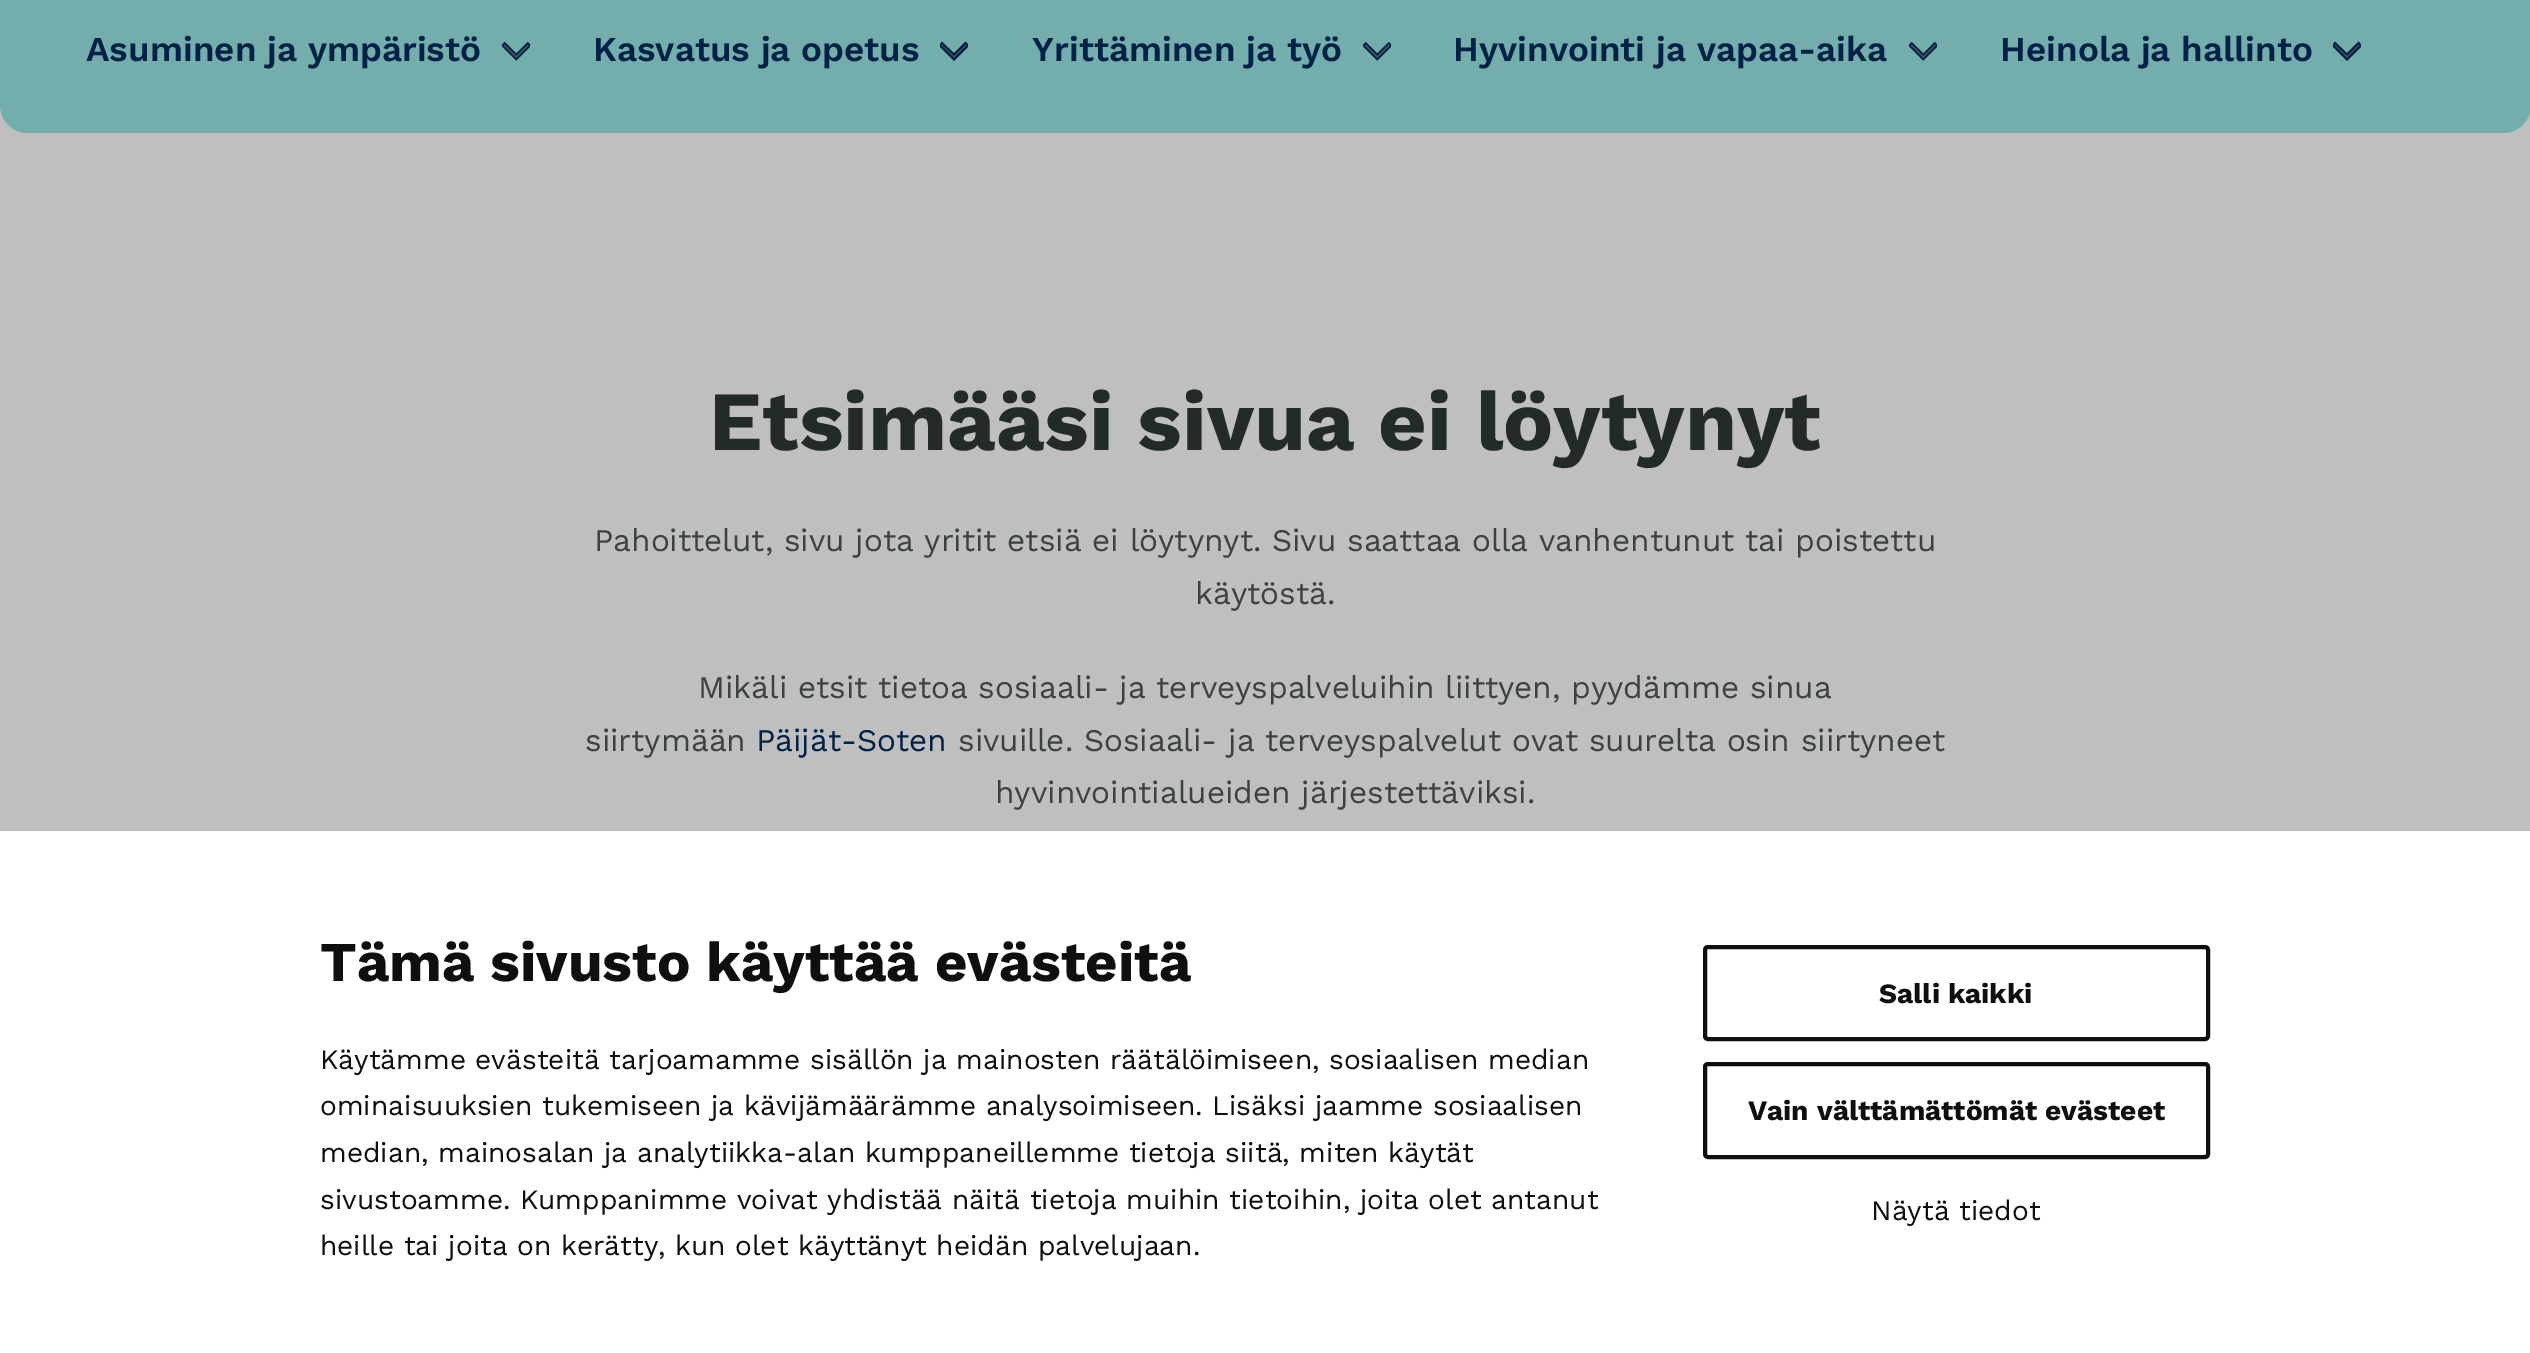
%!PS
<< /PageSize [2530 1353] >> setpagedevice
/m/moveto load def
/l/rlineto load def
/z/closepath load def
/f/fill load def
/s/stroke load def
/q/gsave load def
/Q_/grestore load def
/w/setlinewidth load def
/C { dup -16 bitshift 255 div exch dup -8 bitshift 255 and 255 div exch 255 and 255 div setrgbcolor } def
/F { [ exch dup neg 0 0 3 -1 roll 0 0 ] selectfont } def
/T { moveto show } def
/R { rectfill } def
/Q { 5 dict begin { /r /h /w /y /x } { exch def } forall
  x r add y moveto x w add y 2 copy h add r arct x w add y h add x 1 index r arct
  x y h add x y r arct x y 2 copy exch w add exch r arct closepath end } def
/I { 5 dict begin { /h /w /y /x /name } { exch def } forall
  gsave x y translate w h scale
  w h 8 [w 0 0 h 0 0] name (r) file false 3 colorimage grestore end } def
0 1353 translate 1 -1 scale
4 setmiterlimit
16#BFBFBF C
0 0 2530 1353 R
16#73AEAC C
0 -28 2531 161 28 Q f
/WorkSans-SemiBold 35 F
16#002147 C
(Asuminen ja ympäristö) 86 61 T
(1.rgb) 502 41 28 20 I
(Kasvatus ja opetus) 593 61 T
16#4E5356 C
968 45.5 m -14 14 l -14 -14 l 2 -2.5 l 12 11.5 l 11.5 -11.5 l z f
q
940 37 28 28 rectclip
16#002147 C
1.8 w
968 45.5 m -14 14 l -14 -14 l 2 -2.5 l 12 11.5 l 11.5 -11.5 l z s
Q_
16#002147 C
(Yrittäminen ja työ) 1032 61 T
(1.rgb) 1363 41 28 20 I
(Hyvinvointi ja vapaa-aika) 1453 61 T
(1.rgb) 1909 41 28 20 I
(Heinola ja hallinto) 2000 61 T
16#4E5356 C
2361 45.5 m -14 14 l -14 -14 l 2 -2.5 l 12 11.5 l 11.5 -11.5 l z f
q
2333 37 28 28 rectclip
16#002147 C
1.8 w
2361 45.5 m -14 14 l -14 -14 l 2 -2.5 l 12 11.5 l 11.5 -11.5 l z s
Q_
/WorkSans-Bold 84 F
16#222B29 C
(Etsimääsi sivua ei löytynyt) 709 450 T
/WorkSans-Regular 31.5 F
16#3C4141 C
(Pahoittelut, sivu jota yritit etsiä ei löytynyt. Sivu saattaa olla vanhentunut tai poistettu) 594 551 T
(käytöstä.) 1195 604 T
(Mikäli etsit tietoa sosiaali- ja terveyspalveluihin liittyen, pyydämme sinua) 698 698 T
(siirtymään) 585 751 T
16#002147 C
(Päijät-Soten) 756 751 T
16#3C4141 C
(sivuille. Sosiaali- ja terveyspalvelut ovat suurelta osin siirtyneet) 958 751 T
(hyvinvointialueiden järjestettäviksi.) 995 803 T
16#FFFFFF C
0 831 2530 522 R
/WorkSans-Bold 56 F
16#0F0F0F C
(Tämä sivusto käyttää evästeitä) 320 981 T
/WorkSans-Regular 28 F
(Käytämme evästeitä tarjoamamme sisällön ja mainosten räätälöimiseen, sosiaalisen median) 320 1069 T
(ominaisuuksien tukemiseen ja kävijämäärämme analysoimiseen. Lisäksi jaamme sosiaalisen) 320 1115 T
(median, mainosalan ja analytiikka-alan kumppaneillemme tietoja siitä, miten käytät) 320 1162 T
(sivustoamme. Kumppanimme voivat yhdistää näitä tietoja muihin tietoihin, joita olet antanut) 320 1209 T
(heille tai joita on kerätty, kun olet käyttänyt heidän palvelujaan.) 320 1255 T
4 w
1705 947 503 92 3 Q s
/WorkSans-Bold 28 F
(Salli kaikki) 1879 1003 T
1705 1064 503 93 3 Q s
(Vain välttämättömät evästeet) 1748 1120 T
/WorkSans-Regular 28 F
(Näytä tiedot) 1871 1220 T
showpage
